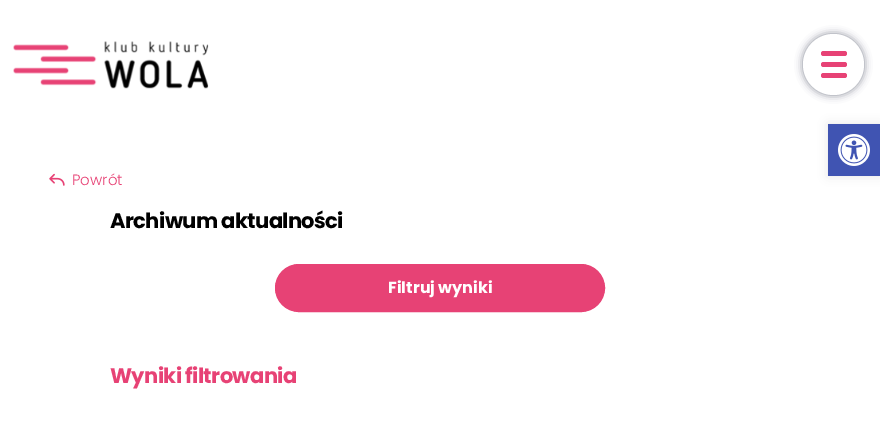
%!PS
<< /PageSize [880 426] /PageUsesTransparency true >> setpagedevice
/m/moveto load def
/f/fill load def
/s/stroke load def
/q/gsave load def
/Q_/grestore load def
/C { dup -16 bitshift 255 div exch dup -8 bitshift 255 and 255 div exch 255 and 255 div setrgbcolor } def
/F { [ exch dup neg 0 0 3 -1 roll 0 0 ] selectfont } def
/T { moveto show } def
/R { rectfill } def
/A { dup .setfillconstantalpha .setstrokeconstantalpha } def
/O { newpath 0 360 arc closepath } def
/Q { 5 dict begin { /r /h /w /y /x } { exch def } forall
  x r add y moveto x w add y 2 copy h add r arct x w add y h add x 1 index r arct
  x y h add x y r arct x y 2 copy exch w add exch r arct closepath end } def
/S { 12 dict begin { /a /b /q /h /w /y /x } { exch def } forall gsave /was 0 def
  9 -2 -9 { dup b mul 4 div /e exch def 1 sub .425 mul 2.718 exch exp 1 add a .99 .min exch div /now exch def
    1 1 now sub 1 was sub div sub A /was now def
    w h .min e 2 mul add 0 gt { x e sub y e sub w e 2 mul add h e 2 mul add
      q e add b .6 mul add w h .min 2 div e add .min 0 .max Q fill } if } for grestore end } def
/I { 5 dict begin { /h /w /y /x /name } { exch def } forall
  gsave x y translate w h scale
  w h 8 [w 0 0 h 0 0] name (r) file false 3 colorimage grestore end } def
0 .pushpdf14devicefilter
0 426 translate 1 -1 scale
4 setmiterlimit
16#FFFFFF C
0 0 880 426 R
(1.rgb) 13 41 196 48 I
16#838693 C
803 34 61 61 30.5 4 1 S
16#FFFFFF C
833.5 64.5 30.5 O f
16#E74275 C
821 51 26 5 2.5 Q f
821 62 26 5 2.5 Q f
821 73 26 5 2.5 Q f
16#000000 C
828 124 52 52 0 5 .1 S
16#4054B2 C
828 124 52 52 R
(2.rgb) 838 134 32 32 I
(3.rgb) 49 173 16 13 I
/Poppins-Light 15 F
16#E74275 C
(Powrót) 72 185 T
/Poppins-Bold 21 F
16#000000 C
110 228 m -.6 0 (Archiwum aktualności) ashow
16#E74275 C
275.5 264.5 329 47 23.5 Q q f Q_
s
/Poppins-Bold 16 F
16#FFFFFF C
(Filtruj wyniki) 388 293 T
/Poppins-Bold 21 F
16#E74275 C
110 383 m -.6 0 (Wyniki filtrowania) ashow
.poppdf14devicefilter showpage
